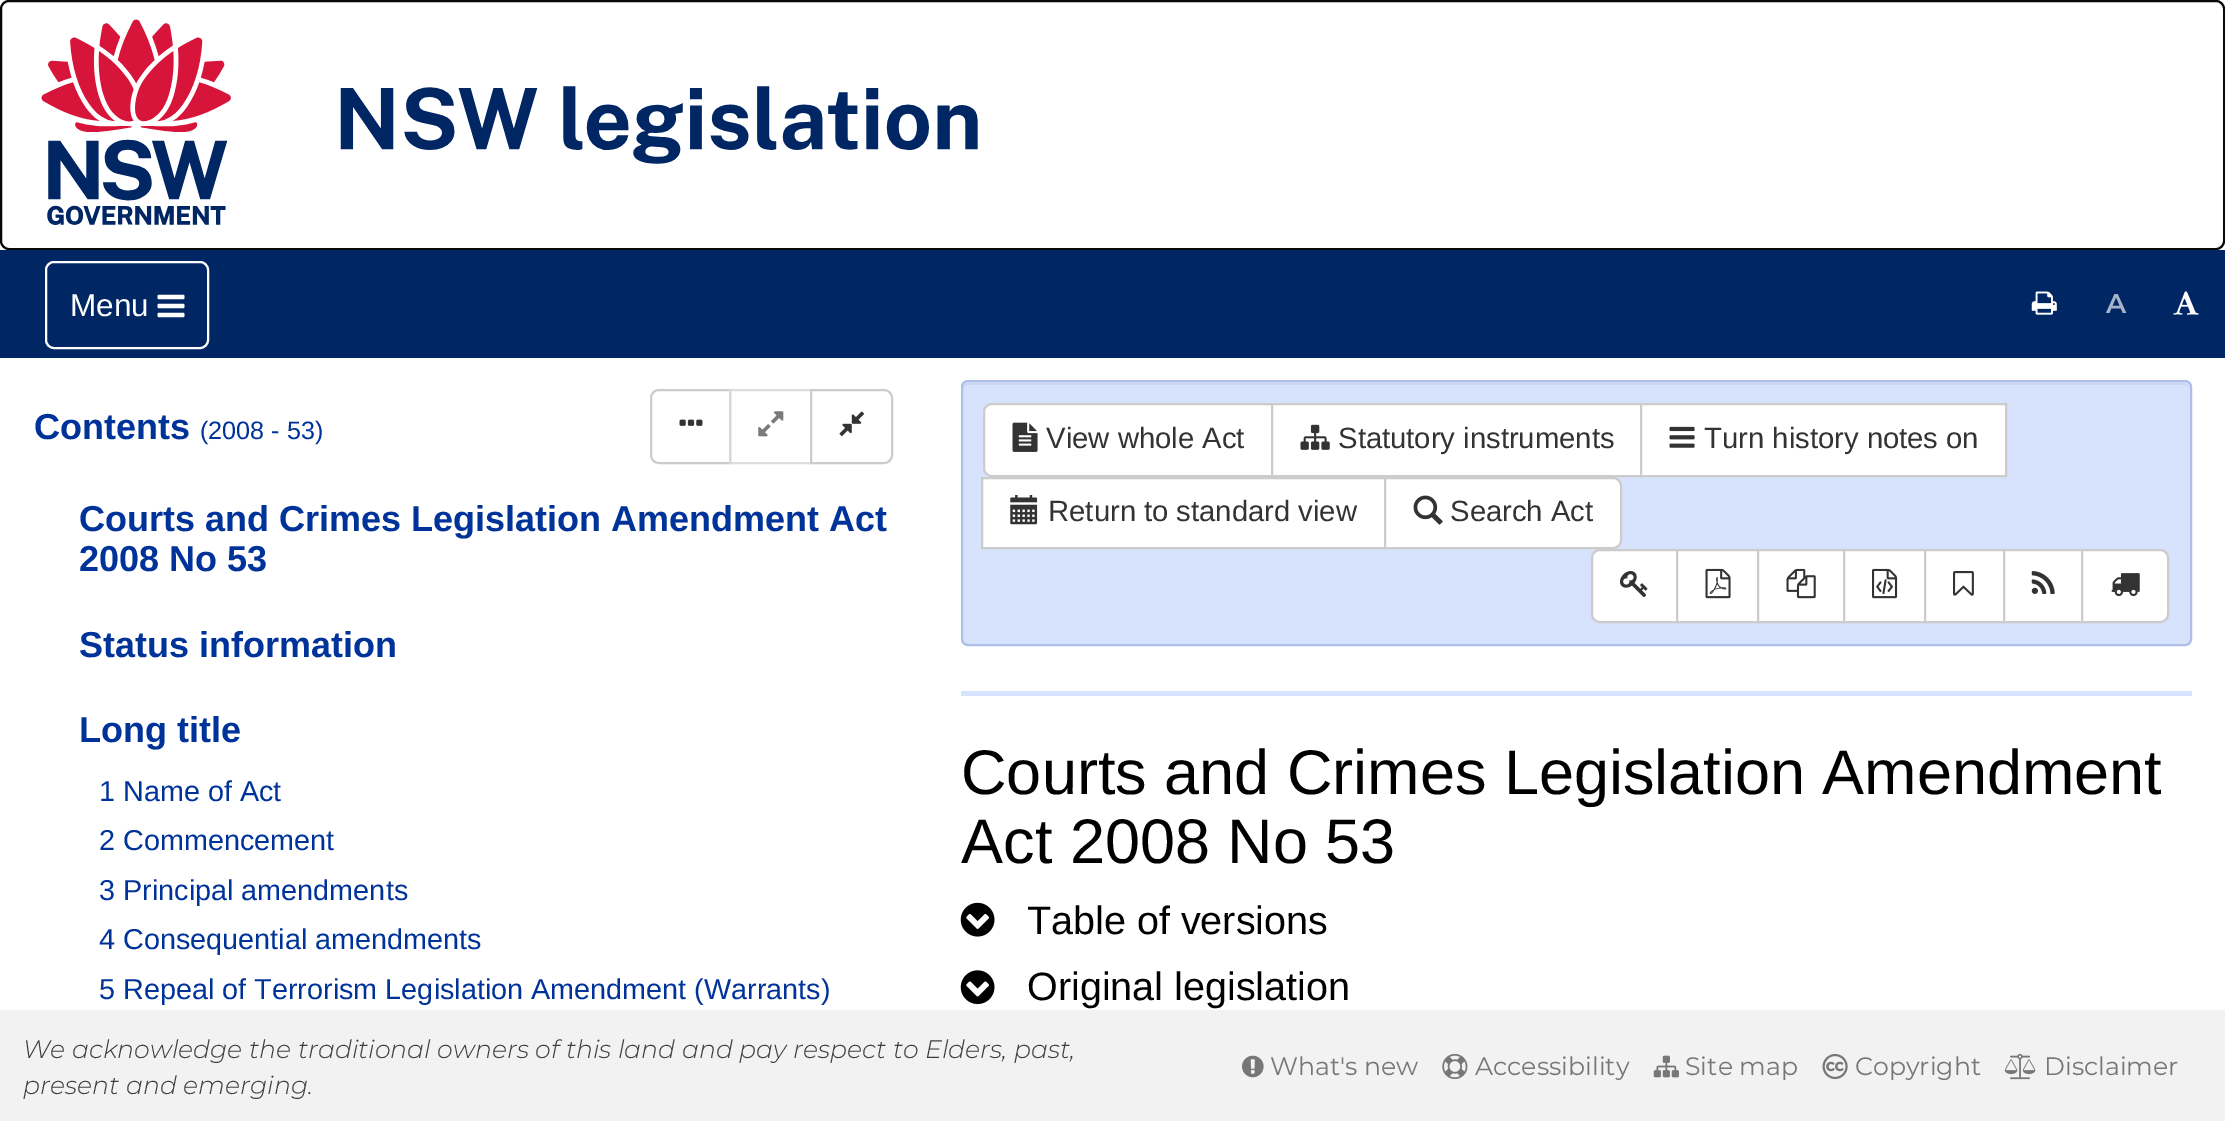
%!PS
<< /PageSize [2225 1121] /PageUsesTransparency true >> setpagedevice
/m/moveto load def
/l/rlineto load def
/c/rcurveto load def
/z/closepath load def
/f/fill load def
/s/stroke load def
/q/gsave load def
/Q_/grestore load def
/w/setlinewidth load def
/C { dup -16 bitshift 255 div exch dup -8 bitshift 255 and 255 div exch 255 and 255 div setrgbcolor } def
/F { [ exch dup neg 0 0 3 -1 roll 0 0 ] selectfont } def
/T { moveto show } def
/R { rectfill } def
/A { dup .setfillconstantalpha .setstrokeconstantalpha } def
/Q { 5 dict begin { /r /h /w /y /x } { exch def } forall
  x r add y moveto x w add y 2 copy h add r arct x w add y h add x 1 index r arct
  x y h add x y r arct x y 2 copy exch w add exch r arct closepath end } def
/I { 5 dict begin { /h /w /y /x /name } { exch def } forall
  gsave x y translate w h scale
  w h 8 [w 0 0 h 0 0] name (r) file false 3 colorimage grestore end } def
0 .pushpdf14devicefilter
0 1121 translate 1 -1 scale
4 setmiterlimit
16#FFFFFF C
0 0 2225 1121 R
16#080808 C
2 w
1 1 2223 248 8 Q s
(1.rgb) 41 19 937 206 I
16#002664 C
0 250 2225 108 R
16#FFFFFF C
46 262 162 86 8 Q s
/LiberationSans-Regular 31.5 F
(Menu) 70 316 T
(2.rgb) 157 294 28 24 I
(3.rgb) 2031 291 26 24 I
/Montserrat-SemiBold 27 F
16#A6B3C9 C
2106 313 m 1 0 (A) ashow
(4.rgb) 2173 291 26 24 I
/LiberationSans-Bold 36 F
16#003399 C
(Contents) 34 439 T
/LiberationSans-Regular 25.2 F
(\(2008 - 53\)) 200 439 T
16#CCCCCC C
659 390 m 71 0 l 0 73 l -71 0 l -4.5 0 -8 -3.5 -8 -8 c 0 -57 l 0 -4.5 3.5 -8 8 -8 c z s
(5.rgb) 679 419 24 7 I
0.65 A
16#FFFFFF C
729 389 2 75 R
16#CCCCCC C
730 390 81 73 rectstroke
1 A
(6.rgb) 758 411 26 26 I
16#FFFFFF C
811 390 m 73 0 l 4.5 0 8 3.5 8 8 c 0 57 l 0 4.5 -3.5 8 -8 8 c -73 0 l z q f Q_
16#CCCCCC C
s
(7.rgb) 839 411 26 26 I
/LiberationSans-Bold 36 F
16#003399 C
(Courts and Crimes Legislation Amendment Act) 79 531 T
(2008 No 53) 79 571 T
(Status information) 79 657 T
(Long title) 79 742 T
/LiberationSans-Regular 28.8 F
(1 Name of Act) 99 801 T
(2 Commencement) 99 850 T
(3 Principal amendments) 99 900 T
(4 Consequential amendments) 99 949 T
(5 Repeal of Terrorism Legislation Amendment \(Warrants\)) 99 999 T
16#D7E2FC C
961 380 1231 266 7 Q f
16#CCD7EF C
968 385 m 1217 0 l 2 0 4 2 4 4 c 0 -3 -2 -6 -5 -6 c -1216 0 l -3 0 -5 3 -5 6 c 0 -2 2 -4 5 -4 c z f
16#AEBFE9 C
962 381 1229 264 6 Q s
16#FFFFFF C
992 404 m 281 0 l 0 72 l -281 0 l -4.5 0 -8 -3.5 -8 -8 c 0 -56 l 0 -4.5 3.5 -8 8 -8 c z q f Q_
16#CCCCCC C
s
(8.rgb) 1012 422 26 30 I
/LiberationSans-Regular 29.25 F
16#333333 C
(View whole Act) 1046 448 T
16#FFFFFF C
1273 405 367 70 R
16#CCCCCC C
1272 404 370 72 rectstroke
(9.rgb) 1300 424 30 26 I
16#333333 C
(Statutory instruments) 1338 448 T
16#FFFFFF C
1641 404 m 365 0 l 0 72 l -365 0 l z q f Q_
16#CCCCCC C
s
(10.rgb) 1669 426 26 22 I
16#333333 C
(Turn history notes on) 1704 448 T
16#FFFFFF C
982 478 m 403 0 l 0 70 l -403 0 l z q f Q_
16#CCCCCC C
s
(11.rgb) 1010 495 28 30 I
16#333333 C
(Return to standard view) 1048 521 T
16#FFFFFF C
1385 478 m 228 0 l 4.5 0 8 3.5 8 8 c 0 54 l 0 4.5 -3.5 8 -8 8 c -228 0 l z q f Q_
16#CCCCCC C
s
(12.rgb) 1413 495 30 30 I
16#333333 C
(Search Act) 1450 521 T
16#FFFFFF C
1600 550 m 78 0 l 0 72 l -78 0 l -4.5 0 -8 -3.5 -8 -8 c 0 -56 l 0 -4.5 3.5 -8 8 -8 c z q f Q_
16#CCCCCC C
s
(13.rgb) 1620 571 28 26 I
16#FFFFFF C
1678 551 79 70 R
16#CCCCCC C
1677 550 82 72 rectstroke
(14.rgb) 1705 568 26 31 I
16#FFFFFF C
1758 550 m 86 0 l 0 72 l -86 0 l z q f Q_
16#CCCCCC C
s
(15.rgb) 1786 568 30 31 I
16#FFFFFF C
1844 550 m 81 0 l 0 72 l -81 0 l z q f Q_
16#CCCCCC C
s
(16.rgb) 1872 568 26 31 I
16#FFFFFF C
1925 550 m 79 0 l 0 72 l -79 0 l z q f Q_
16#CCCCCC C
s
(17.rgb) 1953 571 21 25 I
16#FFFFFF C
2005 551 76 70 R
16#CCCCCC C
2004 550 79 72 rectstroke
(18.rgb) 2031 571 24 23 I
16#FFFFFF C
2082 550 m 78 0 l 4.5 0 8 3.5 8 8 c 0 56 l 0 4.5 -3.5 8 -8 8 c -78 0 l z q f Q_
16#CCCCCC C
s
(19.rgb) 2111 573 29 24 I
16#D7E2FC C
961 691 1231 5 R
/LiberationSans-Regular 63 F
16#000000 C
(Courts and Crimes Legislation Amendment) 961 794 T
(Act 2008 No 53) 961 863 T
(20.rgb) 960 902 35 35 I
/LiberationSans-Regular 39.5 F
(Table of versions) 1027 934 T
(21.rgb) 960 970 35 35 I
(Original legislation) 1027 1000 T
16#F2F2F2 C
0 1010 2225 111 R
/Montserrat-LightItalic 25.2 F
16#3D3D3D C
(We acknowledge the traditional owners of this land and pay respect to Elders, past,) 23 1058 T
(present and emerging.) 23 1094 T
(22.rgb) 1242 1055 22 23 I
/Montserrat-Regular 25.2 F
16#777777 C
(What's new) 1270 1075 T
(23.rgb) 1442 1053 26 27 I
(Accessibility) 1475 1075 T
(24.rgb) 1653 1055 26 23 I
(Site map) 1685 1075 T
(25.rgb) 1822 1053 26 27 I
(Copyright) 1855 1075 T
(26.rgb) 2004 1053 32 27 I
(Disclaimer) 2044 1075 T
.poppdf14devicefilter showpage
